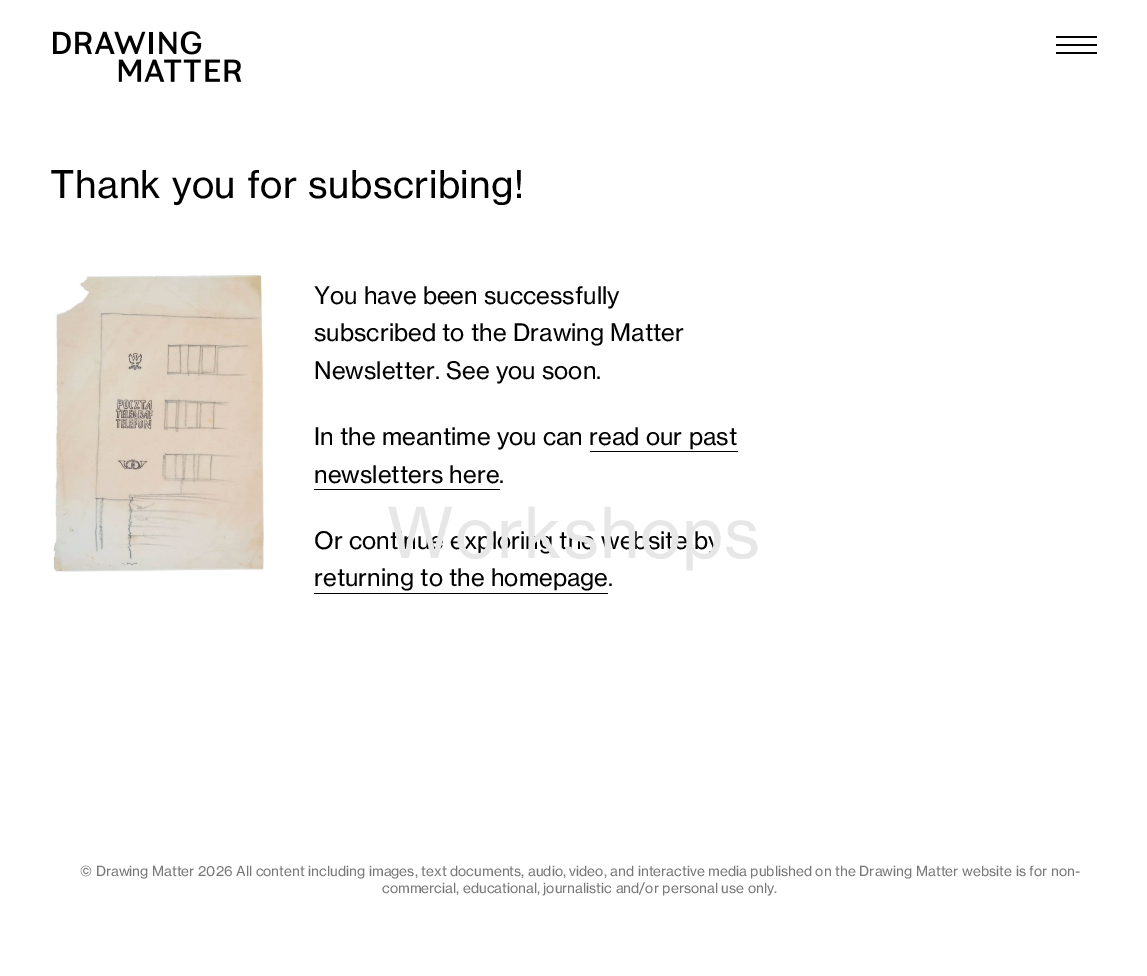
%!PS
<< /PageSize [1147 976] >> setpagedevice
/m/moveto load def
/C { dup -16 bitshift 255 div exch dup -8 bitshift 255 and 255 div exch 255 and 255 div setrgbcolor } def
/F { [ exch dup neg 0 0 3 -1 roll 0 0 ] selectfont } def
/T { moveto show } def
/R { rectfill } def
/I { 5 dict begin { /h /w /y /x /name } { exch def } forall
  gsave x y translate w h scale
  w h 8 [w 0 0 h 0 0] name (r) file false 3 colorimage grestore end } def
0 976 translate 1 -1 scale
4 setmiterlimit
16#FFFFFF C
0 0 1147 976 R
/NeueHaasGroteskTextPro-Regular 37.5 F
16#000000 C
50 198 m .5 0 (Thank you for subscribing!) ashow
(1.rgb) 52 272 212 300 I
/NeueHaasGroteskTextPro-Regular 23.75 F
(You have been successfully) 314 304 T
(subscribed to the Drawing Matter) 314 341 T
(Newsletter. See you soon.) 314 379 T
(In the meantime you can read our past) 314 445 T
(newsletters here.) 314 483 T
590 451 148 1 R
314 489 186 1 R
(Or continue exploring the website by) 314 549 T
(returning to the homepage.) 314 586 T
314 593 294 1 R
(2.rgb) 53 31 189 51 I
1056 44 41 2 R
1056 36 41 2 R
1056 52 41 2 R
/NeueHaasGroteskTextPro-Regular 69 F
16#E7E7E7 C
387 558 m 1.1 0 (Workshops) ashow
/NeueHaasGroteskTextPro-Regular 13.75 F
16#777777 C
(© Drawing Matter 2026 All content including images, text documents, audio, video, and interactive media published on the Drawing Matter website is for non-) 80 876 T
(commercial, educational, journalistic and/or personal use only.) 382 893 T
showpage
